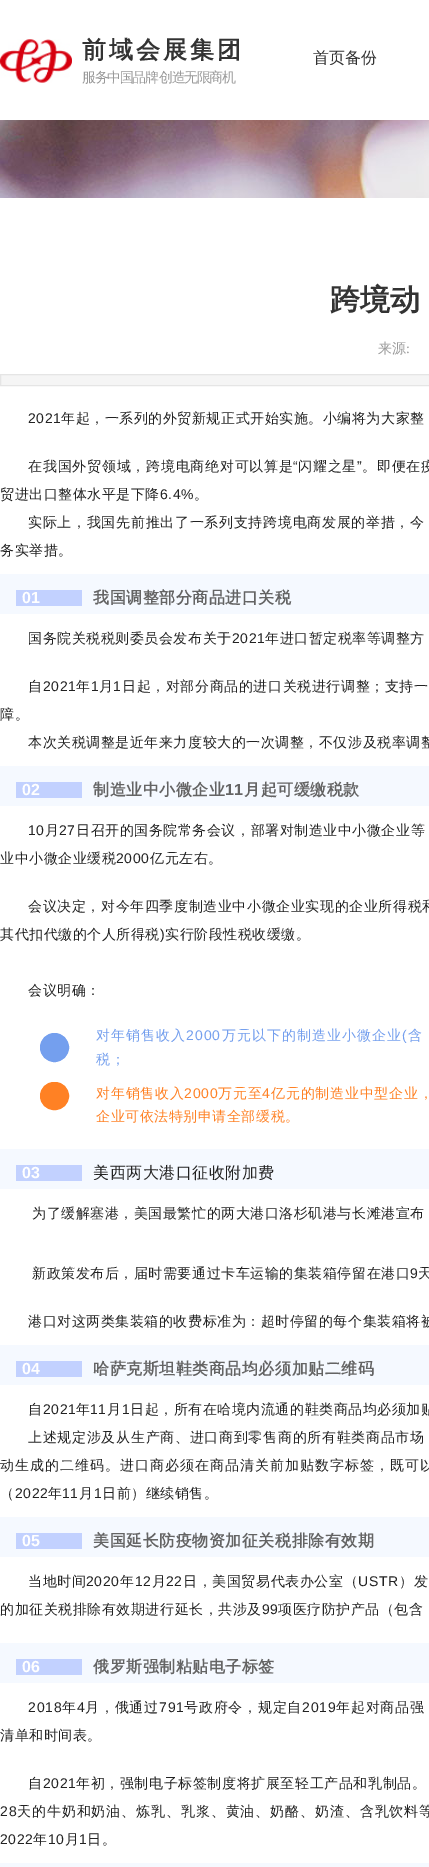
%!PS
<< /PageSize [429 1867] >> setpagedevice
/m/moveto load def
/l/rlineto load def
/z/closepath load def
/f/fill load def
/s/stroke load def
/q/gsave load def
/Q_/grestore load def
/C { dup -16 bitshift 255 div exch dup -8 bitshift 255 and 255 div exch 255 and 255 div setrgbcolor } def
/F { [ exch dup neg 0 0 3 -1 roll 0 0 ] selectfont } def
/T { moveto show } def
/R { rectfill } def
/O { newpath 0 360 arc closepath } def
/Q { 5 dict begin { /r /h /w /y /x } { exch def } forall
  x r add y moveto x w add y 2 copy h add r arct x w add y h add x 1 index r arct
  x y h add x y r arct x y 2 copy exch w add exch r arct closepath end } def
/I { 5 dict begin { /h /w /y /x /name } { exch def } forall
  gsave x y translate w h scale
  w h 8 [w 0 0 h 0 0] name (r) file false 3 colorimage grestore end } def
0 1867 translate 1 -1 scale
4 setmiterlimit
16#FFFFFF C
0 0 429 1867 R
(1.rgb) 0 39 72 44 I
/WenQuanYiZenHei-Bold 24 F
16#333333 C
82 58 m 3 0 (前域会展集团) ashow
/WenQuanYiZenHei-Medium 16 F
(首页备份) 313 63 T
/WenQuanYiZenHei-Medium 14 F
16#999999 C
82 82 m -1.5 0 (服务中国品牌) ashow
159 82 m -1.5 0 (创造无限商机) ashow
(2.rgb) 0 120 429 78 I
/WenQuanYiZenHei-Bold 30 F
16#333333 C
(跨境动) 330 310 T
/WenQuanYiZenHei-Medium 14 F
16#999999 C
(来源) 378 353 T
/LiberationSerif-Regular 14 F
(:) 406 353 T
16#F5F5F5 C
.5 374.5 m 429 0 l 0 11 l -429 0 l z q f Q_
16#E5E5E5 C
s
/LiberationSans-Regular 14 F
16#222222 C
28 423 m .55 0 (2021) ashow
/WenQuanYiZenHei-Medium 14 F
61 423 m .55 0 (年起，一系列的外贸新规正式开始实施。小编将为大家整) ashow
28 471 m .75 0 (在我国外贸领域，跨境电商绝对可以算是) ashow
/LiberationSans-Regular 14 F
293 471 m .75 0 (“) ashow
/WenQuanYiZenHei-Medium 14 F
298 471 m .75 0 (闪耀之星) ashow
/LiberationSans-Regular 14 F
357 471 m .75 0 (”) ashow
/WenQuanYiZenHei-Medium 14 F
362 471 m .75 0 (。即便在疫) ashow
0 499 m .55 0 (贸进出口整体水平是下降) ashow
/LiberationSans-Regular 14 F
160 499 m .55 0 (6.4%) ashow
/WenQuanYiZenHei-Medium 14 F
194 499 m .55 0 (。) ashow
28 527 m .7 0 (实际上，我国先前推出了一系列支持跨境电商发展的举措，今) ashow
0 555 m .55 0 (务实举措。) ashow
16#F5F9FF C
0 574 429 40 R
16#C2D1FF C
16 590 66 16 R
/LiberationSans-Bold 16 F
16#FFFFFF C
22 603 m .55 0 (01) ashow
/WenQuanYiZenHei-Bold 16 F
16#646464 C
93 603 m .55 0 (我国调整部分商品进口关税) ashow
/WenQuanYiZenHei-Medium 14 F
16#222222 C
28 643 m .55 0 (国务院关税税则委员会发布关于) ashow
/LiberationSans-Regular 14 F
232 643 m .55 0 (2021) ashow
/WenQuanYiZenHei-Medium 14 F
265 643 m .55 0 (年进口暂定税率等调整方) ashow
28 691 m .6 0 (自) ashow
/LiberationSans-Regular 14 F
43 691 m .6 0 (2021) ashow
/WenQuanYiZenHei-Medium 14 F
76 691 m .6 0 (年) ashow
/LiberationSans-Regular 14 F
91 691 m .6 0 (1) ashow
/WenQuanYiZenHei-Medium 14 F
99 691 m .6 0 (月) ashow
/LiberationSans-Regular 14 F
113 691 m .6 0 (1) ashow
/WenQuanYiZenHei-Medium 14 F
122 691 m .6 0 (日起，对部分商品的进口关税进行调整；支持一) ashow
0 719 m .55 0 (障。) ashow
28 747 m .55 0 (本次关税调整是近年来力度较大的一次调整，不仅涉及税率调整) ashow
16#F5F9FF C
0 766 429 40 R
16#C2D1FF C
16 782 66 16 R
/LiberationSans-Bold 16 F
16#FFFFFF C
22 795 m .55 0 (02) ashow
/WenQuanYiZenHei-Bold 16 F
16#646464 C
93 795 m .55 0 (制造业中小微企业) ashow
/LiberationSans-Bold 16 F
225 795 m .55 0 (11) ashow
/WenQuanYiZenHei-Bold 16 F
244 795 m .55 0 (月起可缓缴税款) ashow
/LiberationSans-Regular 14 F
16#222222 C
28 835 m .55 0 (10) ashow
/WenQuanYiZenHei-Medium 14 F
45 835 m .55 0 (月) ashow
/LiberationSans-Regular 14 F
59 835 m .55 0 (27) ashow
/WenQuanYiZenHei-Medium 14 F
76 835 m .55 0 (日召开的国务院常务会议，部署对制造业中小微企业等) ashow
0 863 m .55 0 (业中小微企业缓税) ashow
/LiberationSans-Regular 14 F
116 863 m .55 0 (2000) ashow
/WenQuanYiZenHei-Medium 14 F
150 863 m .55 0 (亿元左右。) ashow
28 911 m .6 0 (会议决定，对今年四季度制造业中小微企业实现的企业所得税和) ashow
0 939 m .55 0 (其代扣代缴的个人所得税) ashow
/LiberationSans-Regular 14 F
160 939 m .55 0 (\)) ashow
/WenQuanYiZenHei-Medium 14 F
165 939 m .55 0 (实行阶段性税收缓缴。) ashow
28 995 m .55 0 (会议明确：) ashow
16#749FEE C
54.5 1047.5 14 O q f Q_
s
96 1040 m 1 0 (对年销售收入) ashow
/LiberationSans-Regular 14 F
186 1040 m 1 0 (2000) ashow
/WenQuanYiZenHei-Medium 14 F
222 1040 m 1 0 (万元以下的制造业小微企业) ashow
/LiberationSans-Regular 14 F
402 1040 m 1 0 (\() ashow
/WenQuanYiZenHei-Medium 14 F
408 1040 m 1 0 (含) ashow
96 1064 m .55 0 (税；) ashow
16#FF8124 C
40.5 1082.5 28 27 13.5 Q q f Q_
s
96 1098 m .75 0 (对年销售收入) ashow
/LiberationSans-Regular 14 F
184 1098 m .75 0 (2000) ashow
/WenQuanYiZenHei-Medium 14 F
218 1098 m .75 0 (万元至) ashow
/LiberationSans-Regular 14 F
262 1098 m .75 0 (4) ashow
/WenQuanYiZenHei-Medium 14 F
271 1098 m .75 0 (亿元的制造业中型企业，) ashow
96 1121 m .55 0 (企业可依法特别申请全部缓税。) ashow
16#F5F9FF C
0 1149 429 40 R
16#C2D1FF C
16 1165 66 16 R
/LiberationSans-Bold 16 F
16#FFFFFF C
22 1178 m .55 0 (03) ashow
/WenQuanYiZenHei-Medium 16 F
16#222222 C
93 1178 m .55 0 (美西两大港口征收附加费) ashow
/WenQuanYiZenHei-Medium 14 F
32 1218 m .55 0 (为了缓解塞港，美国最繁忙的两大港口洛杉矶港与长滩港宣布) ashow
32 1278 m .55 0 (新政策发布后，届时需要通过卡车运输的集装箱停留在港口) ashow
/LiberationSans-Regular 14 F
410 1278 m .55 0 (9) ashow
/WenQuanYiZenHei-Medium 14 F
418 1278 m .55 0 (天) ashow
28 1326 m .55 0 (港口对这两类集装箱的收费标准为：超时停留的每个集装箱将被) ashow
16#F5F9FF C
0 1345 429 40 R
16#C2D1FF C
16 1361 66 16 R
/LiberationSans-Bold 16 F
16#FFFFFF C
22 1374 m .55 0 (04) ashow
/WenQuanYiZenHei-Bold 16 F
16#646464 C
93 1374 m .55 0 (哈萨克斯坦鞋类商品均必须加贴二维码) ashow
/WenQuanYiZenHei-Medium 14 F
16#222222 C
28 1414 m .55 0 (自) ashow
/LiberationSans-Regular 14 F
43 1414 m .55 0 (2021) ashow
/WenQuanYiZenHei-Medium 14 F
76 1414 m .55 0 (年) ashow
/LiberationSans-Regular 14 F
90 1414 m .55 0 (11) ashow
/WenQuanYiZenHei-Medium 14 F
107 1414 m .55 0 (月) ashow
/LiberationSans-Regular 14 F
122 1414 m .55 0 (1) ashow
/WenQuanYiZenHei-Medium 14 F
130 1414 m .55 0 (日起，所有在哈境内流通的鞋类商品均必须加贴) ashow
28 1442 m .7 0 (上述规定涉及从生产商、进口商到零售商的所有鞋类商品市场) ashow
0 1470 m 1 0 (动生成的二维码。进口商必须在商品清关前加贴数字标签，既可以) ashow
0 1498 m .55 0 (（) ashow
/LiberationSans-Regular 14 F
15 1498 m .55 0 (2022) ashow
/WenQuanYiZenHei-Medium 14 F
48 1498 m .55 0 (年) ashow
/LiberationSans-Regular 14 F
62 1498 m .55 0 (11) ashow
/WenQuanYiZenHei-Medium 14 F
79 1498 m .55 0 (月) ashow
/LiberationSans-Regular 14 F
94 1498 m .55 0 (1) ashow
/WenQuanYiZenHei-Medium 14 F
102 1498 m .55 0 (日前）继续销售。) ashow
16#F5F9FF C
0 1517 429 40 R
16#C2D1FF C
16 1533 66 16 R
/LiberationSans-Bold 16 F
16#FFFFFF C
22 1546 m .55 0 (05) ashow
/WenQuanYiZenHei-Bold 16 F
16#646464 C
93 1546 m .55 0 (美国延长防疫物资加征关税排除有效期) ashow
/WenQuanYiZenHei-Medium 14 F
16#222222 C
28 1586 m .6 0 (当地时间) ashow
/LiberationSans-Regular 14 F
86 1586 m .6 0 (2020) ashow
/WenQuanYiZenHei-Medium 14 F
120 1586 m .6 0 (年) ashow
/LiberationSans-Regular 14 F
135 1586 m .6 0 (12) ashow
/WenQuanYiZenHei-Medium 14 F
152 1586 m .6 0 (月) ashow
/LiberationSans-Regular 14 F
166 1586 m .6 0 (22) ashow
/WenQuanYiZenHei-Medium 14 F
183 1586 m .6 0 (日，美国贸易代表办公室（) ashow
/LiberationSans-Regular 14 F
358 1586 m .6 0 (USTR) ashow
/WenQuanYiZenHei-Medium 14 F
399 1586 m .6 0 (）发) ashow
0 1614 m .55 0 (的加征关税排除有效期进行延长，共涉及) ashow
/LiberationSans-Regular 14 F
262 1614 m .55 0 (99) ashow
/WenQuanYiZenHei-Medium 14 F
278 1614 m .55 0 (项医疗防护产品（包含) ashow
16#F5F9FF C
0 1643 429 40 R
16#C2D1FF C
16 1659 66 16 R
/LiberationSans-Bold 16 F
16#FFFFFF C
22 1672 m .55 0 (06) ashow
/WenQuanYiZenHei-Bold 16 F
16#646464 C
93 1672 m .55 0 (俄罗斯强制粘贴电子标签) ashow
/LiberationSans-Regular 14 F
16#222222 C
28 1712 m .75 0 (2018) ashow
/WenQuanYiZenHei-Medium 14 F
62 1712 m .75 0 (年) ashow
/LiberationSans-Regular 14 F
77 1712 m .75 0 (4) ashow
/WenQuanYiZenHei-Medium 14 F
85 1712 m .75 0 (月，俄通过) ashow
/LiberationSans-Regular 14 F
159 1712 m .75 0 (791) ashow
/WenQuanYiZenHei-Medium 14 F
184 1712 m .75 0 (号政府令，规定自) ashow
/LiberationSans-Regular 14 F
302 1712 m .75 0 (2019) ashow
/WenQuanYiZenHei-Medium 14 F
336 1712 m .75 0 (年起对商品强) ashow
0 1740 m .55 0 (清单和时间表。) ashow
28 1788 m .6 0 (自) ashow
/LiberationSans-Regular 14 F
43 1788 m .6 0 (2021) ashow
/WenQuanYiZenHei-Medium 14 F
76 1788 m .6 0 (年初，强制电子标签制度将扩展至轻工产品和乳制品。) ashow
/LiberationSans-Regular 14 F
0 1816 m .9 0 (28) ashow
/WenQuanYiZenHei-Medium 14 F
17 1816 m .9 0 (天的牛奶和奶油、炼乳、乳浆、黄油、奶酪、奶渣、含乳饮料等) ashow
/LiberationSans-Regular 14 F
0 1844 m .55 0 (2022) ashow
/WenQuanYiZenHei-Medium 14 F
33 1844 m .55 0 (年) ashow
/LiberationSans-Regular 14 F
48 1844 m .55 0 (10) ashow
/WenQuanYiZenHei-Medium 14 F
65 1844 m .55 0 (月) ashow
/LiberationSans-Regular 14 F
79 1844 m .55 0 (1) ashow
/WenQuanYiZenHei-Medium 14 F
87 1844 m .55 0 (日。) ashow
16#F5F9FF C
0 1863 429 4 R
showpage
